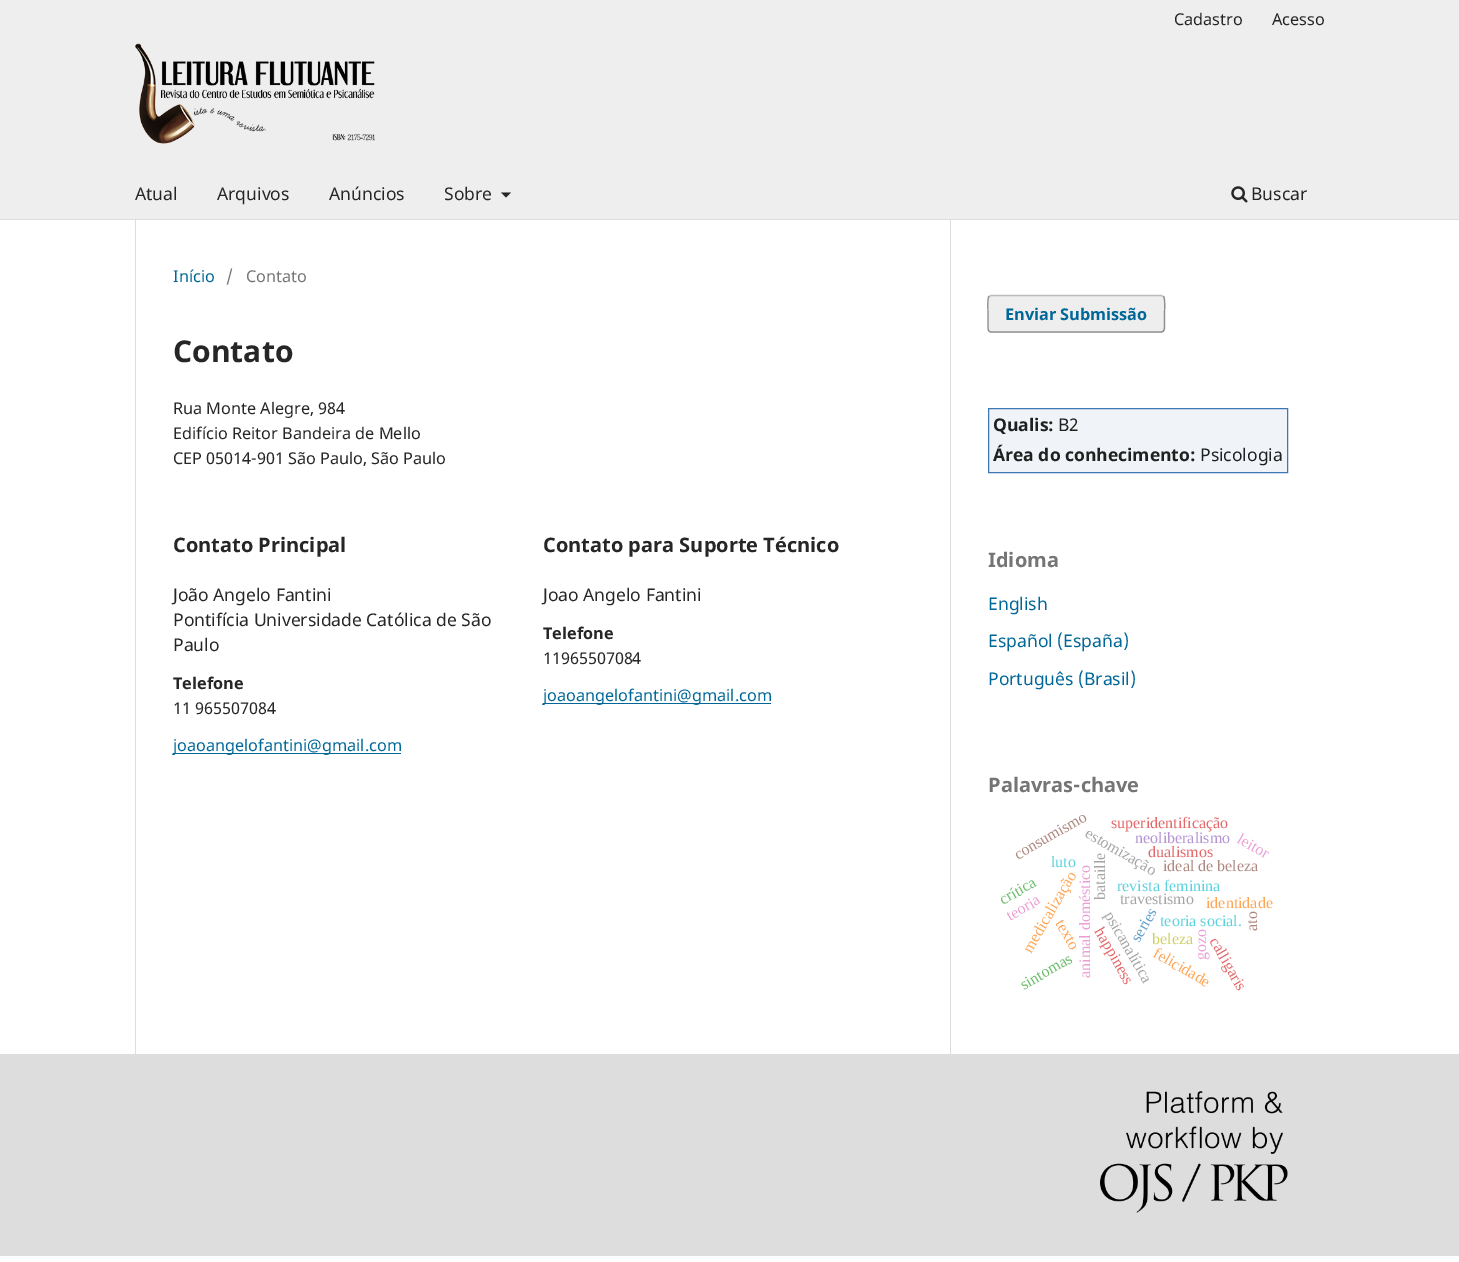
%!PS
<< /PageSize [1459 1262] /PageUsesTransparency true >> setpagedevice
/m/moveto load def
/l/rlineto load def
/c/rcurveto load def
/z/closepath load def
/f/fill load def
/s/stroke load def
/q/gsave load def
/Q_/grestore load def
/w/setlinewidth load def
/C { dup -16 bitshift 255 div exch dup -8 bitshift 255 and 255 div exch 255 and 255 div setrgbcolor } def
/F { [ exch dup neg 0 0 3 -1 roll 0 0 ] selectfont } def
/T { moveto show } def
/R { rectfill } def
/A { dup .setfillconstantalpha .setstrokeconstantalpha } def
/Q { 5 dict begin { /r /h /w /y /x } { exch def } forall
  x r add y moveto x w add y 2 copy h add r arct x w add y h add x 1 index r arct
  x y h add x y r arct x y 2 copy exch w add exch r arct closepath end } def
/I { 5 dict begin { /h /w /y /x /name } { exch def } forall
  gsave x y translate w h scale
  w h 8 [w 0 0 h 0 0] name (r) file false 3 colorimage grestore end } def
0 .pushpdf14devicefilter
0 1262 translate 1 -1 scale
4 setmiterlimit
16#FFFFFF C
0 0 1459 1262 R
16#EEEEEE C
0 0 1459 219 R
16#DDDDDD C
0 219 1459 1 R
/NotoSans-Regular 16.25 F
16#262626 C
(Cadastro) 1174 25 T
(Acesso) 1272 25 T
/NotoSans-Regular 17.5 F
(Atual) 135 200 T
(Arquivos) 217 200 T
(Anúncios) 329 200 T
(Sobre) 444 200 T
501 192.5 m 10 0 l -5 5 l z f
(1.rgb) 1231 186 17 17 I
(Buscar) 1251 200 T
(2.rgb) 135 43 240 101 I
16#DDDDDD C
135 220 1 834 R
/NotoSans-Regular 16.25 F
16#006798 C
(Início) 173 282 T
16#757575 C
(/) 226 282 T
(Contato) 246 282 T
/NotoSans-Bold 30 F
16#262626 C
(Contato) 173 362 T
/NotoSans-Regular 16.25 F
(Rua Monte Alegre, 984) 173 414 T
(Edifício Reitor Bandeira de Mello) 173 439 T
(CEP 05014-901 São Paulo, São Paulo) 173 464 T
/NotoSans-Bold 20 F
(Contato Principal) 173 552 T
/NotoSans-Regular 17.5 F
(João Angelo Fantini) 173 601 T
(Pontifícia Universidade Católica de São) 173 626 T
(Paulo) 173 651 T
/NotoSans-Bold 16.25 F
(Telefone) 173 689 T
/NotoSans-Regular 16.25 F
(11 965507084) 173 714 T
16#006798 C
173 753 228 1 R
(joaoangelofantini@gmail.com) 173 751 T
/NotoSans-Bold 20 F
16#262626 C
(Contato para Suporte Técnico) 543 552 T
/NotoSans-Regular 17.5 F
(Joao Angelo Fantini) 543 601 T
/NotoSans-Bold 16.25 F
(Telefone) 543 639 T
/NotoSans-Regular 16.25 F
(11965507084) 543 664 T
16#006798 C
543 703 228 1 R
(joaoangelofantini@gmail.com) 543 701 T
16#DDDDDD C
950 220 1 834 R
16#EEEEEE C
988 295 177 38 4 Q f
16#BBBBBB C
1.2 w
989 296.5 m 2 -1 l 170 0 l 2.5 1 l s
0.4 A
16#000000 C
1163.5 296.5 m 2 2 1 14 1 17.5 c 0 10 l 0 2 1 8 -3.5 8 c -170 0 l -4 0 -3 -6 -3 -8 c 0 -10 l 0 -3.5 -1 -15.5 1 -17.5 c s
/NotoSans-Bold 16.25 F
1 A
16#006798 C
(Enviar Submissão) 1005 320 T
16#F0F4F8 C
988.5 408.5 m 299 0 l 0 64 l -299 0 l z q f Q_
16#3F77B4 C
1 w
s
/NotoSans-Bold 17.5 F
16#1F2020 C
(Qualis:) 993 431 T
/NotoSans-Regular 17.5 F
(B2) 1058 431 T
/NotoSans-Bold 17.5 F
(Área do conhecimento:) 993 461 T
/NotoSans-Regular 17.5 F
(Psicologia) 1200 461 T
/NotoSans-Bold 20 F
16#757575 C
(Idioma) 988 567 T
/NotoSans-Regular 17.5 F
16#006798 C
(English) 988 610 T
(Español \(España\)) 988 647 T
(Português \(Brasil\)) 988 685 T
/NotoSans-Bold 20 F
16#757575 C
(Palavras-chave) 988 792 T
/LiberationSerif-Regular 16 F
16#A5A5A5 C
q 1084 836 translate 30 rotate 0 0 m (estomização) show Q_
16#AF8981 C
q 1018 860 translate -30 rotate 0 0 m (consumismo) show Q_
16#E26869 C
(superidentificação) 1111 828 T
16#B495D1 C
(neoliberalismo) 1135 843 T
16#EBA0D4 C
q 1236 842 translate 30 rotate 0 0 m (leitor) show Q_
16#E26869 C
(dualismos) 1148 857 T
16#5DD2DD C
(luto) 1051 867 T
16#EBA0D4 C
q 1090 978 translate -90 rotate 0 0 m (animal doméstico) show Q_
16#A5A5A5 C
q 1105 900 translate -90 rotate 0 0 m (bataille) show Q_
16#AF8981 C
(ideal de beleza) 1163 871 T
16#FFA556 C
q 1031 954 translate -60 rotate 0 0 m (medicalização) show Q_
16#6BBD6B C
q 1003 905 translate -30 rotate 0 0 m (crítica) show Q_
16#5DD2DD C
(revista feminina) 1117 891 T
16#EBA0D4 C
q 1010 921 translate -30 rotate 0 0 m (teoria) show Q_
16#A5A5A5 C
(travestismo) 1120 904 T
16#FFA556 C
(identidade) 1206 908 T
16#A5A5A5 C
q 1104 915 translate 60 rotate 0 0 m (psicanalítica) show Q_
16#62A0CB C
q 1139 943 translate -60 rotate 0 0 m (series) show Q_
16#FFA556 C
q 1055 923 translate 60 rotate 0 0 m (texto) show Q_
16#5DD2DD C
(teoria social.) 1160 926 T
16#AF8981 C
q 1257 931 translate -90 rotate 0 0 m (ato) show Q_
16#E26869 C
q 1094 931 translate 60 rotate 0 0 m (happiness) show Q_
16#D0D164 C
(beleza) 1152 944 T
16#EBA0D4 C
q 1206 960 translate -90 rotate 0 0 m (gozo) show Q_
16#E26869 C
q 1209 941 translate 60 rotate 0 0 m (calligaris) show Q_
16#6BBD6B C
q 1024 990 translate -30 rotate 0 0 m (sintomas) show Q_
16#FFA556 C
q 1152 956 translate 30 rotate 0 0 m (felicidade) show Q_
16#DDDDDD C
0 1054 1459 202 R
(3.rgb) 1100 1091 188 122 I
.poppdf14devicefilter showpage
